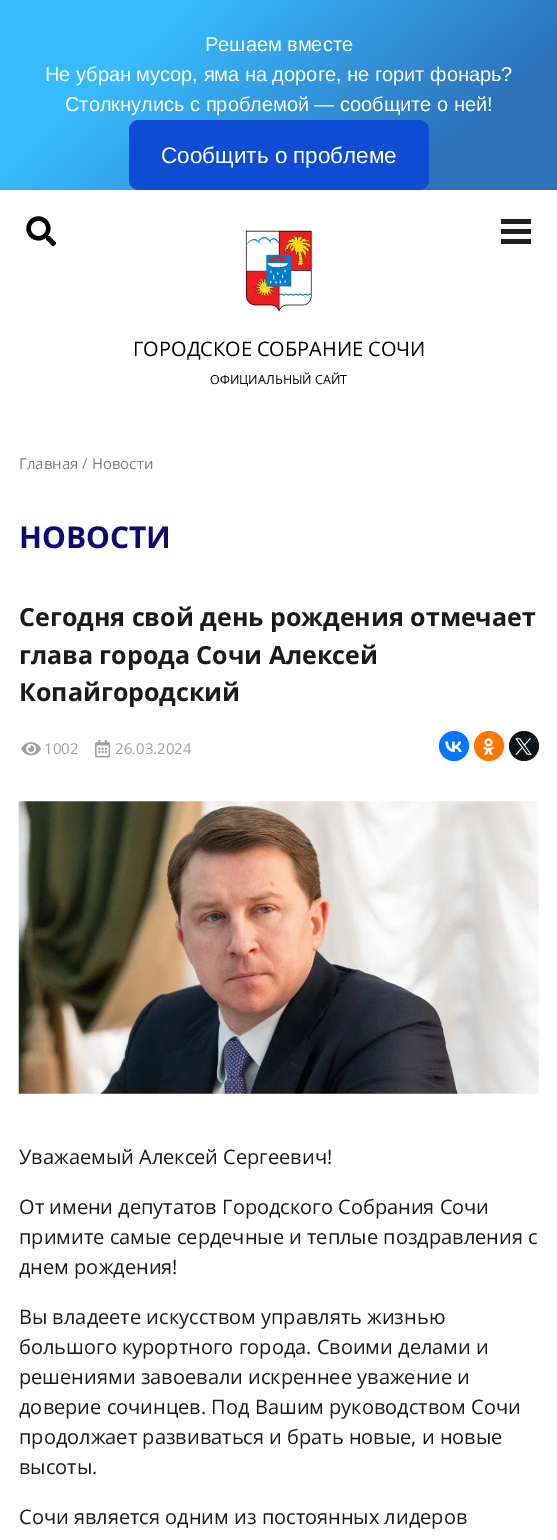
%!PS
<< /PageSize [557 1540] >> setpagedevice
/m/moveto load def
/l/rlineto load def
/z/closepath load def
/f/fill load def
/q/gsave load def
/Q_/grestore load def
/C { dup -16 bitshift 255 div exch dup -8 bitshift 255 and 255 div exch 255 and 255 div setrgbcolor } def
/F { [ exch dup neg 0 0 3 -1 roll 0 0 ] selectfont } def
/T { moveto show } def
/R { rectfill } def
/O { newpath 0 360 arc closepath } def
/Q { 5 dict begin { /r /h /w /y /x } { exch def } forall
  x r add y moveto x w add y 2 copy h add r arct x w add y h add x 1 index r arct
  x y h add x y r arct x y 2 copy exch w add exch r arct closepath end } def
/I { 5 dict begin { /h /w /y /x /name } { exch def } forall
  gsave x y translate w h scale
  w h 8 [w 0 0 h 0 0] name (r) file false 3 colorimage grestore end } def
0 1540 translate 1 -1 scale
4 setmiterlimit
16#FFFFFF C
0 0 557 1540 R
q 0 0 m 557 0 l 0 190 l -557 0 l z clip newpath
<< /ShadingType 2 /ColorSpace /DeviceRGB /Coords [109 -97 449 287] /Extend [true true] /Function << /FunctionType 3 /Domain [0 1] /Functions [<< /FunctionType 2 /Domain [0 1] /C0 [.22 .729 .996] /C1 [.22 .729 .996] /N 1 >> << /FunctionType 2 /Domain [0 1] /C0 [.22 .729 .996] /C1 [.176 .451 .737] /N 1 >> << /FunctionType 2 /Domain [0 1] /C0 [.176 .451 .737] /C1 [.176 .451 .737] /N 1 >>] /Bounds [.26 .79] /Encode [0 1 0 1 0 1] >> >> shfill Q_
/LiberationSans-Regular 20 F
(Решаем вместе) 205 51 T
(Не убран мусор, яма на дороге, не горит фонарь?) 45 81 T
(Столкнулись с проблемой — сообщите о ней!) 65 111 T
16#0D4CD3 C
129 120 300 70 10 Q f
/LiberationSans-Regular 22.5 F
16#FFFFFF C
(Сообщить о проблеме) 161 163 T
(1.rgb) 26 216 30 30 I
16#202020 C
501 219 30 5 R
501 229 30 5 R
501 239 30 5 R
(2.rgb) 245 230 67 82 I
/OpenSans-Regular 20 F
16#000000 C
(ГОРОДСКОЕ СОБРАНИЕ СОЧИ) 133 356 T
/OpenSans-Regular 12.5 F
(ОФИЦИАЛЬНЫЙ САЙТ) 210 384 T
/OpenSans-Regular 15 F
16#808080 C
(Главная / Новости) 19 469 T
/OpenSans-Bold 30 F
16#100773 C
(НОВОСТИ) 19 548 T
/OpenSans-Bold 25 F
16#1A1A1A C
(Сегодня свой день рождения отмечает) 19 626 T
(глава города Сочи Алексей) 19 664 T
(Копайгородский) 19 701 T
(3.rgb) 21 742 20 14 I
/OpenSans-Regular 15 F
16#A0A0A0 C
(1002) 44 754 T
(4.rgb) 95 740 15 18 I
(26.03.2024) 115 754 T
16#0077FF C
454 746 15 O f
(5.rgb) 445 741 17 11 I
16#FF7700 C
489 746 15 O f
(6.rgb) 483 738 12 17 I
16#0F1419 C
524 746 15 O f
(7.rgb) 515 738 17 17 I
(8.rgb) 18 801 521 293 I
/OpenSans-Regular 20 F
16#1A1A1A C
(Уважаемый Алексей Сергеевич!) 19 1164 T
(От имени депутатов Городского Собрания Сочи) 19 1214 T
(примите самые сердечные и теплые поздравления с) 19 1244 T
(днем рождения!) 19 1274 T
(Вы владеете искусством управлять жизнью) 19 1324 T
(большого курортного города. Своими делами и) 19 1354 T
(решениями завоевали искреннее уважение и) 19 1384 T
(доверие сочинцев. Под Вашим руководством Сочи) 19 1414 T
(продолжает развиваться и брать новые, и новые) 19 1444 T
(высоты.) 19 1474 T
(Сочи является одним из постоянных лидеров) 19 1524 T
showpage
